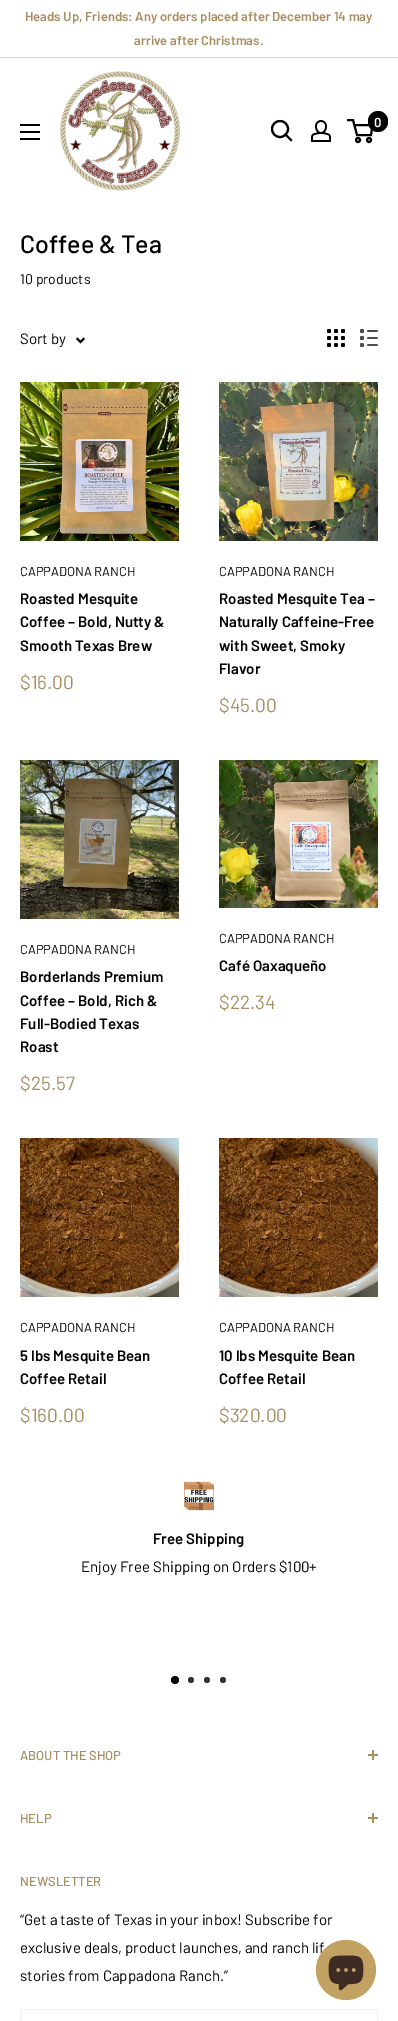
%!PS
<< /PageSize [398 2021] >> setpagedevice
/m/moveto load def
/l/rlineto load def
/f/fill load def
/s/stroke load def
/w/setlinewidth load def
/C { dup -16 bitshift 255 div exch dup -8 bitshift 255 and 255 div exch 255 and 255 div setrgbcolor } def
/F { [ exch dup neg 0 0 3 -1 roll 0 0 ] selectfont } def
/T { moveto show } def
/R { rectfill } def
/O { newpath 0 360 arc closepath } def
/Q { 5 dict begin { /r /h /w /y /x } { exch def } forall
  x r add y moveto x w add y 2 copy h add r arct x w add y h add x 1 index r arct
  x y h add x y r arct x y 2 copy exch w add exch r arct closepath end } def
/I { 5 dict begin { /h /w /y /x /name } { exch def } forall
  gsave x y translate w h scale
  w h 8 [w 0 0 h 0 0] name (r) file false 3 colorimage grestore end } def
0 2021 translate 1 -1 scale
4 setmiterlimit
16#FFFFFF C
0 0 398 2021 R
16#D1D5D7 C
0 57 398 1 R
/Barlow-SemiBold 13 F
16#A98E61 C
(Heads Up, Friends: Any orders placed after December 14 may) 25 21 T
(arrive after Christmas.) 134 45 T
(1.rgb) 60 71 120 120 I
16#000000 C
2.1 w
2 setlinecap
291 140 m -5.5 -5.5 l s
0 setlinecap
280 129 8 O s
(2.rgb) 311 120 20 22 I
2 w
358 140 2 O s
369 140 2 O s
354.5 125 m 18 0 l -1.5 10 l -14 0 l -4 -15 l -6 0 l s
368 111 20 21 10 Q f
16#FFFFFF C
(0) 374 127 T
(3.rgb) 20 124 20 16 I
/Barlow-Medium 25 F
16#000000 C
(Coffee & Tea) 20 253 T
/Barlow-Regular 14 F
(10 products) 20 284 T
/Barlow-Regular 15 F
(Sort by) 20 344 T
1.9 w
2 setlinecap
83.5 339 m -3 3 l -3 -3 l s
(4.rgb) 327 329 18 18 I
(5.rgb) 360 329 18 18 I
(6.rgb) 20 382 159 159 I
/Barlow-Regular 13 F
(CAPPADONA RANCH) 20 576 T
/Barlow-SemiBold 15 F
(Roasted Mesquite) 20 604 T
(Coffee – Bold, Nutty &) 20 627 T
(Smooth Texas Brew) 20 651 T
/Barlow-Regular 19 F
16#A98E61 C
($16.00) 20 689 T
(7.rgb) 219 382 159 159 I
/Barlow-Regular 13 F
16#000000 C
(CAPPADONA RANCH) 219 576 T
/Barlow-SemiBold 15 F
(Roasted Mesquite Tea –) 219 604 T
(Naturally Caffeine-Free) 219 627 T
(with Sweet, Smoky) 219 651 T
(Flavor) 219 674 T
/Barlow-Regular 19 F
16#A98E61 C
($45.00) 219 712 T
(8.rgb) 20 760 159 159 I
/Barlow-Regular 13 F
16#000000 C
(CAPPADONA RANCH) 20 954 T
/Barlow-SemiBold 15 F
(Borderlands Premium) 20 982 T
(Coffee – Bold, Rich &) 20 1006 T
(Full-Bodied Texas) 20 1029 T
(Roast) 20 1052 T
/Barlow-Regular 19 F
16#A98E61 C
($25.57) 20 1090 T
(9.rgb) 219 760 159 148 I
/Barlow-Regular 13 F
16#000000 C
(CAPPADONA RANCH) 219 943 T
/Barlow-SemiBold 15 F
(Café Oaxaqueño) 219 971 T
/Barlow-Regular 19 F
16#A98E61 C
($22.34) 219 1009 T
(10.rgb) 20 1138 159 159 I
/Barlow-Regular 13 F
16#000000 C
(CAPPADONA RANCH) 20 1332 T
/Barlow-SemiBold 15 F
(5 lbs Mesquite Bean) 20 1361 T
(Coffee Retail) 20 1384 T
/Barlow-Regular 19 F
16#A98E61 C
($160.00) 20 1422 T
(11.rgb) 219 1138 159 159 I
/Barlow-Regular 13 F
16#000000 C
(CAPPADONA RANCH) 219 1332 T
/Barlow-SemiBold 15 F
(10 lbs Mesquite Bean) 219 1361 T
(Coffee Retail) 219 1384 T
/Barlow-Regular 19 F
16#A98E61 C
($320.00) 219 1422 T
(12.rgb) 184 1481 30 30 I
/Barlow-SemiBold 15 F
16#000000 C
(Free Shipping) 153 1544 T
/Barlow-Regular 15 F
(Enjoy Free Shipping on Orders $100+) 81 1572 T
175 1680 4 O f
16#333333 C
191 1680 3 O f
207 1680 3 O f
223 1680 3 O f
/Barlow-Medium 13 F
16#A98E61 C
(ABOUT THE SHOP) 20 1760 T
372 1750 2 10 R
368 1754 10 2 R
(HELP) 20 1823 T
372 1813 2 10 R
368 1817 10 2 R
(NEWSLETTER) 20 1886 T
/Barlow-Regular 15 F
16#000000 C
(“Get a taste of Texas in your inbox! Subscribe for) 20 1925 T
(exclusive deals, product launches, and ranch lif) 20 1953 T
(stories from Cappadona Ranch.”) 20 1981 T
16#F2F2F2 C
1 w
0 setlinecap
20.5 2009.5 357 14 1.5 Q s
16#C2A262 C
346 1970 30 O f
(13.rgb) 328 1955 36 36 I
showpage
